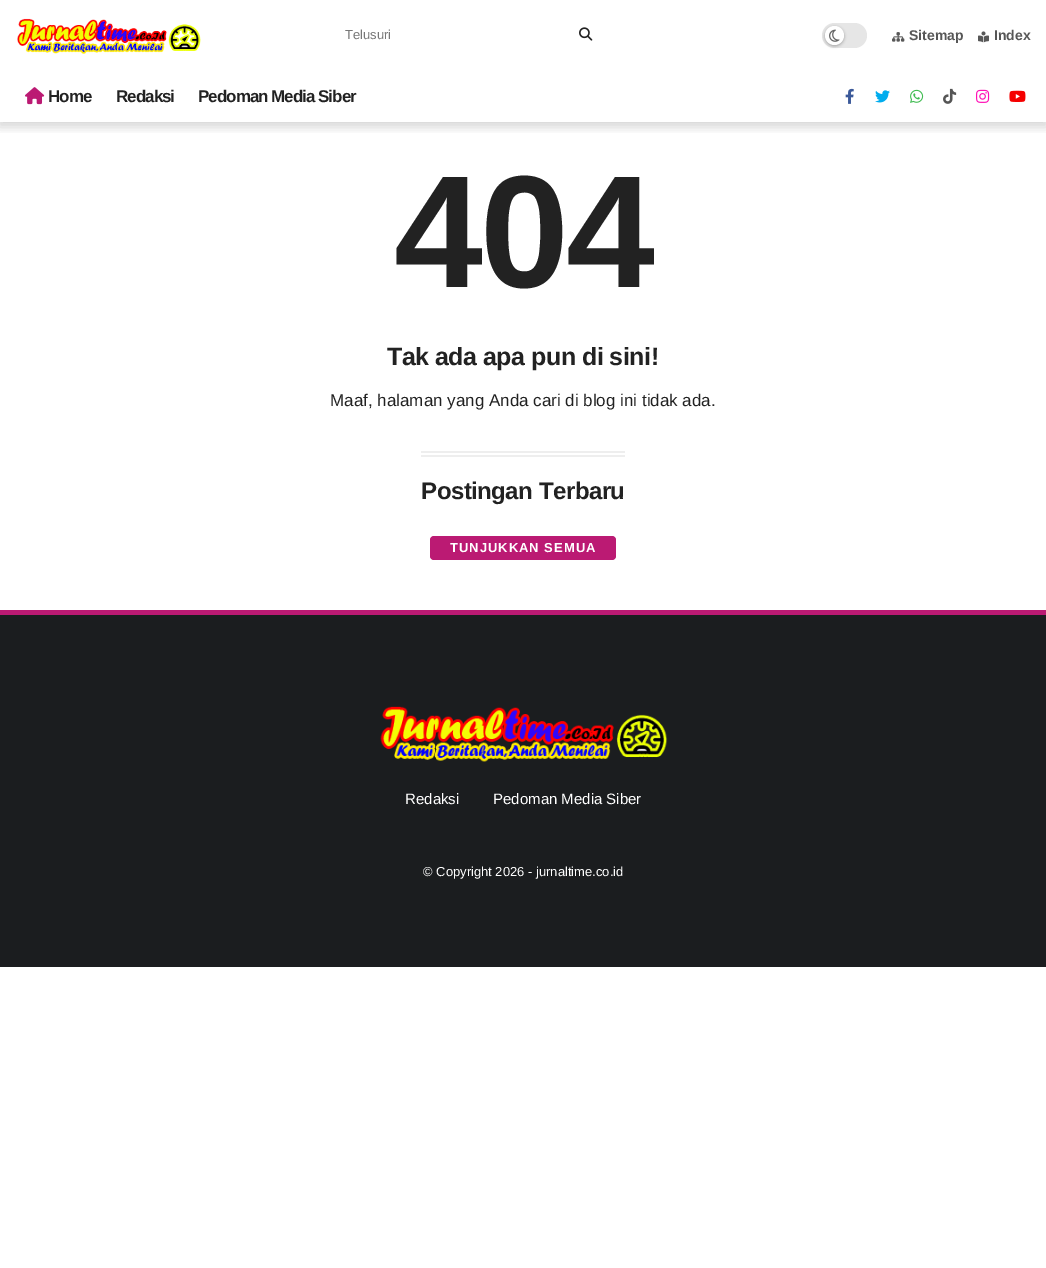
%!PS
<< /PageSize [1046 1268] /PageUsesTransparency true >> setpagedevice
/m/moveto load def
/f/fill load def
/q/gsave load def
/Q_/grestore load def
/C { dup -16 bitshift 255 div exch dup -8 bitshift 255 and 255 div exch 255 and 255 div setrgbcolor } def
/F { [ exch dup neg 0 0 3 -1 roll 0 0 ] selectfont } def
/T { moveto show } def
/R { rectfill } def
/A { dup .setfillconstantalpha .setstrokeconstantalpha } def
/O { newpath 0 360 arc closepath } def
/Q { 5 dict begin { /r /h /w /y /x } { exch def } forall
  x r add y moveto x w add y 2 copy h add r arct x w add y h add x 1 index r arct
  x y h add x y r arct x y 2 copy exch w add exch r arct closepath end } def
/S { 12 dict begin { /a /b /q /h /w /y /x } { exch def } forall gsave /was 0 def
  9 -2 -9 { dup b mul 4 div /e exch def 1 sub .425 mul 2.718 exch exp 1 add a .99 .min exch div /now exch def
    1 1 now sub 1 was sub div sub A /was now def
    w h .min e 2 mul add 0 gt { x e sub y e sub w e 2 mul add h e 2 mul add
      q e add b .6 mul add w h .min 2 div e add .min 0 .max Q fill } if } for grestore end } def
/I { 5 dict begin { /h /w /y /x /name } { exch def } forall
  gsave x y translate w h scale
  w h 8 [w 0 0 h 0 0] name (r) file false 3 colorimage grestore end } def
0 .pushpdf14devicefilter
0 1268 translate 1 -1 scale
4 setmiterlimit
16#FFFFFF C
0 0 1046 1268 R
q
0 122 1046 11 rectclip
16#000000 C
-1 3 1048 124 0 5.5 .16 S
Q_
(1.rgb) 17 18 184 36 I
/LiberationSans-Regular 13 F
16#777777 C
(Telusuri) 345 39 T
(2.rgb) 579 27 14 14 I
16#E6E6E6 C
822 23 45 25 12.5 Q f
16#000000 C
825 27 19 19 9.5 1.5 .3 S
16#FFFFFF C
834.5 35.5 9.5 O f
(3.rgb) 829 29 11 13 I
(4.rgb) 892 32 13 10 I
/LiberationSans-Bold 14 F
16#575757 C
(Sitemap) 909 40 T
(5.rgb) 978 31 11 12 I
(Index) 994 40 T
(6.rgb) 25 87 20 18 I
/LiberationSans-Bold 17 F
16#222222 C
48 102 m -1 0 (Home) ashow
116 102 m -1 0 (Redaksi) ashow
198 102 m -1 0 (Pedoman Media Siber) ashow
(7.rgb) 845 88 9 16 I
(8.rgb) 875 90 15 13 I
(9.rgb) 910 89 14 14 I
(10.rgb) 943 88 14 16 I
(11.rgb) 976 89 14 14 I
(12.rgb) 1009 90 17 12 I
/LiberationSans-Bold 160 F
394 287 m -3 0 (404) ashow
/LiberationSans-Bold 25 F
387 365 m -.5 0 (Tak ada apa pun di sini!) ashow
/LiberationSans-Regular 17 F
(Maaf, halaman yang Anda cari di blog ini tidak ada.) 330 406 T
16#EEEEEE C
421 451 204 2 R
421 455 204 2 R
/LiberationSans-Bold 24 F
16#222222 C
421 499 m -.5 0 (Postingan Terbaru) ashow
16#BB1A73 C
430 536 186 24 4 Q f
/LiberationSans-Bold 13 F
16#FFFFFF C
450 552 m 1 0 (TUNJUKKAN SEMUA) ashow
16#1B1D1F C
0 615 1046 352 R
16#BB1A73 C
0 610 1046 5 R
(13.rgb) 380 706 288 56 I
/LiberationSans-Regular 15 F
16#FFFFFF C
(Redaksi) 405 804 T
(Pedoman Media Siber) 493 804 T
/LiberationSans-Regular 13 F
(© Copyright 2026 - jurnaltime.co.id) 423 876 T
.poppdf14devicefilter showpage
